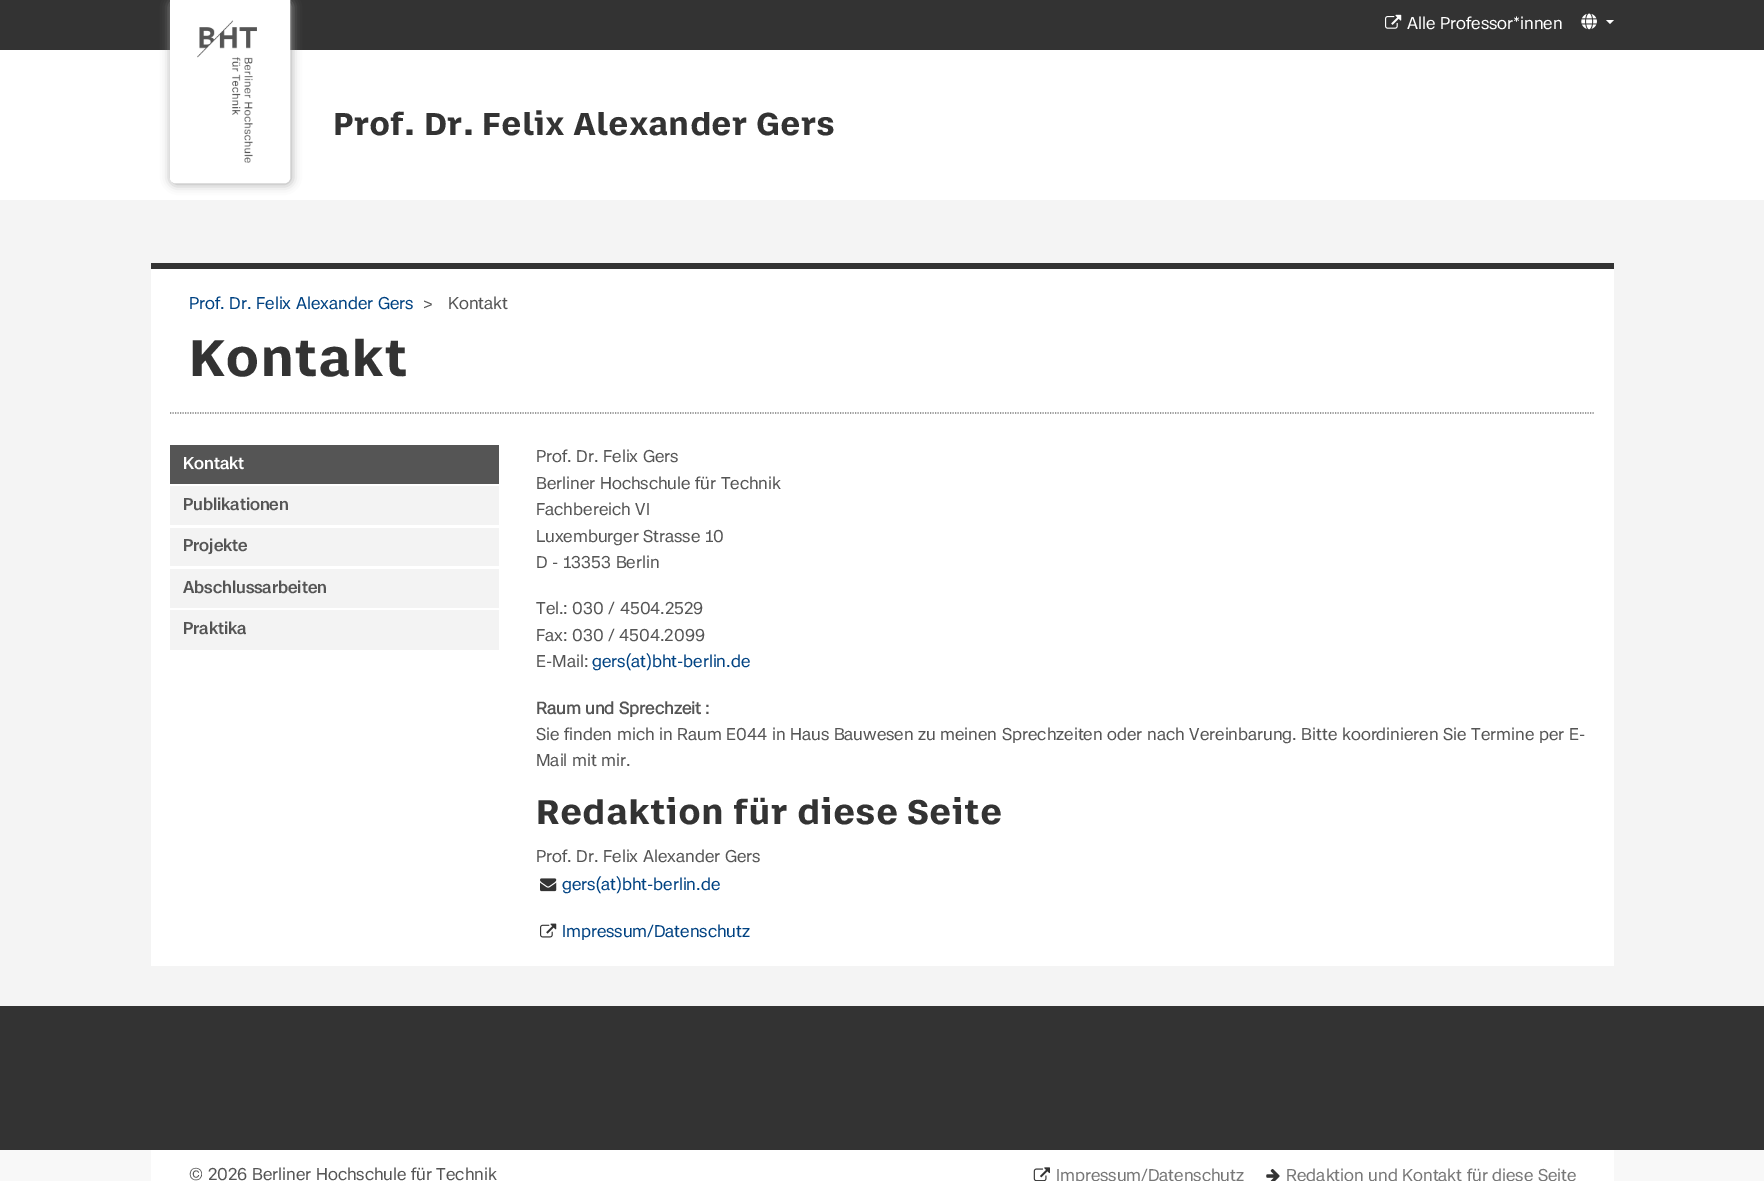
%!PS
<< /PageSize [1764 1181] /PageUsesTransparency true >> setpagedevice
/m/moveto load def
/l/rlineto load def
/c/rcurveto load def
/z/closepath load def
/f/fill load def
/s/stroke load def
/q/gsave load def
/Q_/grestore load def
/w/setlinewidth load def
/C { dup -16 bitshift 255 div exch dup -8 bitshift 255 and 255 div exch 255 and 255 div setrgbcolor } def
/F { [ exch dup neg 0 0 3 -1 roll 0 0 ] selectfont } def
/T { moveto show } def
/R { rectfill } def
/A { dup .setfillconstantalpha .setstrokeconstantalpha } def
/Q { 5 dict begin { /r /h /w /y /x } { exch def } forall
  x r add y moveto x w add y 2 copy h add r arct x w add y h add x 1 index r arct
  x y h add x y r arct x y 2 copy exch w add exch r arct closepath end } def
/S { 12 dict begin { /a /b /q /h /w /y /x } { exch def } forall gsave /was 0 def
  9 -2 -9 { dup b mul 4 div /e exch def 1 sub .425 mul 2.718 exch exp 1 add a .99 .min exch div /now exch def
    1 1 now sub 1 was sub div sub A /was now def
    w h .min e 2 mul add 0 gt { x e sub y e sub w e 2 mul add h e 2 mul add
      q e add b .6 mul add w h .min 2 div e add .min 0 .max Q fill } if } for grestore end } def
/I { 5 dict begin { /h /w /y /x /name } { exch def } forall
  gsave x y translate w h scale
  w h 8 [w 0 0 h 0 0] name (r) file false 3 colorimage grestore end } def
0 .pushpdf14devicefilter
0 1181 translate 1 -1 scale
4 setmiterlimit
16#F4F4F4 C
0 0 1764 1181 R
16#333333 C
0 0 1764 50 R
16#FFFFFF C
0 50 1764 150 R
16#A0A0A0 C
171 1 120 183 5 5 1 S
16#FFFFFF C
170.5 .5 m 119 0 l 0 177.5 l 0 2.5 -2 4.5 -4.5 4.5 c -110 0 l -2.5 0 -4.5 -2 -4.5 -4.5 c z q f Q_
s
(1.rgb) 197 20 60 143 I
(2.rgb) 1385 14 17 15 I
/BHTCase-Regular 16.25 F
(Alle Professor*innen) 1407 29 T
(3.rgb) 1581 13 16 17 I
1606 20 m 8 0 l -4 4 l z f
/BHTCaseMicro-Bold 30 F
16#333333 C
(Prof. Dr. Felix Alexander Gers) 333 135 T
16#FFFFFF C
151 269 1463 697 R
16#333333 C
151 263 1463 6 R
/BHTCase-Regular 16.25 F
16#004282 C
(Prof. Dr. Felix Alexander Gers) 189 309 T
16#555555 C
(>) 423 309 T
(Kontakt) 448 309 T
16#777777 C
1.2 w
[1.25 1.25] 0 setdash
170 413 m 1425 0 l s
/BHTCaseMicro-Bold 48.75 F
16#333333 C
(Kontakt) 189 376 T
16#555555 C
170 445 329 39 R
/BHTCase-Medium 16.25 F
16#FFFFFF C
(Kontakt) 183 469 T
16#F3F3F3 C
170 486 329 39 R
16#555555 C
(Publikationen) 183 510 T
16#F3F3F3 C
170 528 329 38 R
16#555555 C
(Projekte) 183 551 T
16#F3F3F3 C
170 569 329 39 R
16#555555 C
(Abschlussarbeiten) 183 593 T
16#F3F3F3 C
170 610 329 40 R
16#555555 C
(Praktika) 183 634 T
/BHTCase-Regular 16.25 F
(Prof. Dr. Felix Gers) 536 462 T
(Berliner Hochschule für Technik) 536 489 T
(Fachbereich VI) 536 515 T
(Luxemburger Strasse 10) 536 542 T
(D - 13353 Berlin) 536 568 T
(Tel.: 030 / 4504.2529) 536 614 T
(Fax: 030 / 4504.2099) 536 641 T
(E-Mail:) 536 667 T
16#004282 C
(gers\(at\)bht-berlin.de) 592 667 T
/BHTCase-Bold 16.25 F
16#555555 C
(Raum und Sprechzeit :) 536 714 T
/BHTCase-Regular 16.25 F
(Sie finden mich in Raum E044 in Haus Bauwesen zu meinen Sprechzeiten oder nach Vereinbarung. Bitte koordinieren Sie Termine per E-) 536 740 T
(Mail mit mir.) 536 766 T
/BHTCaseMicro-Bold 32.5 F
16#333333 C
(Redaktion für diese Seite) 536 824 T
/BHTCase-Regular 16.25 F
16#555555 C
(Prof. Dr. Felix Alexander Gers) 536 862 T
(4.rgb) 540 878 17 14 I
16#004282 C
(gers\(at\)bht-berlin.de) 562 890 T
(5.rgb) 540 923 17 15 I
(Impressum/Datenschutz) 562 937 T
16#333333 C
0 1006 1764 144 R
16#F8F8F8 C
0 1150 1764 31 R
16#FFFFFF C
151 1150 1463 31 R
16#555555 C
(© 2026 Berliner Hochschule für Technik) 189 1180 T
(6.rgb) 1033 1167 17 14 I
16#777777 C
(Impressum/Datenschutz) 1056 1181 T
(7.rgb) 1266 1169 14 12 I
(Redaktion und Kontakt für diese Seite) 1286 1181 T
.poppdf14devicefilter showpage
